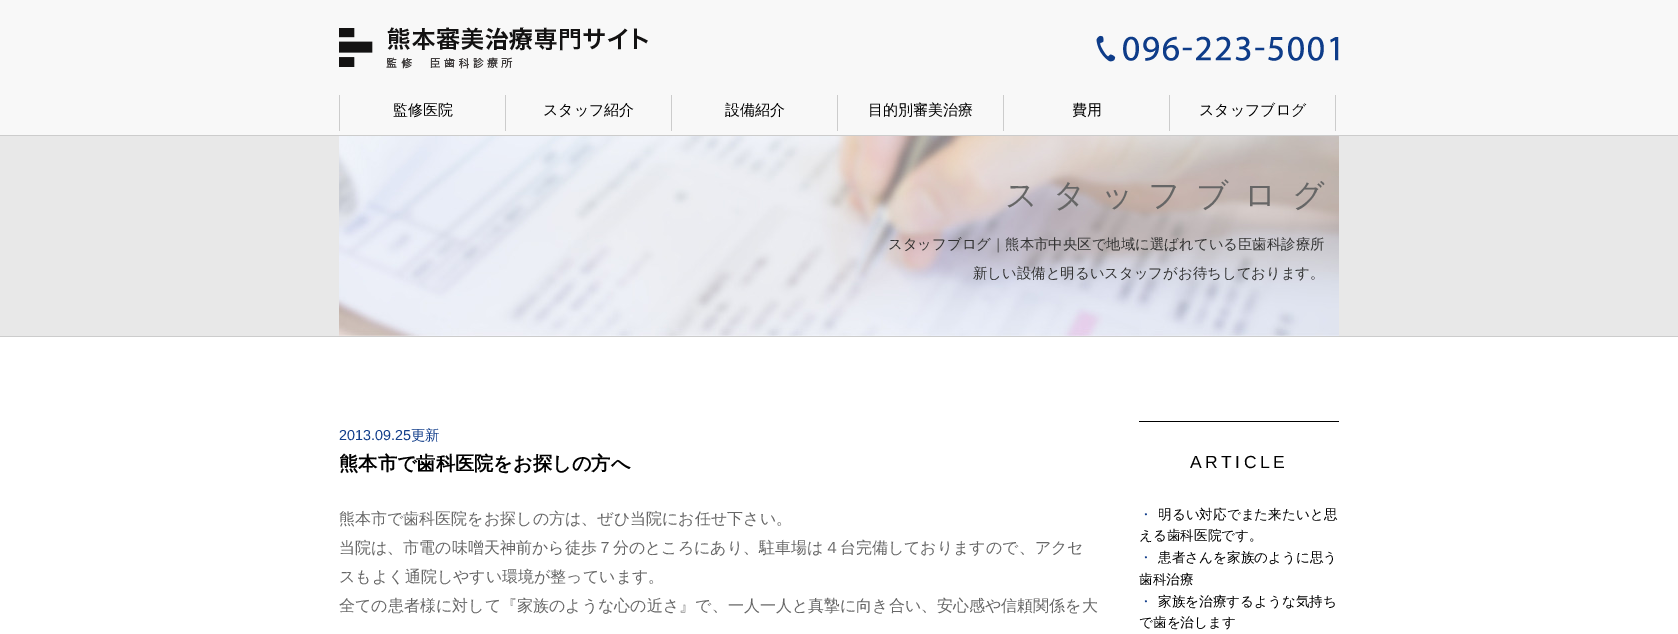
%!PS
<< /PageSize [1678 634] >> setpagedevice
/m/moveto load def
/C { dup -16 bitshift 255 div exch dup -8 bitshift 255 and 255 div exch 255 and 255 div setrgbcolor } def
/F { [ exch dup neg 0 0 3 -1 roll 0 0 ] selectfont } def
/T { moveto show } def
/R { rectfill } def
/I { 5 dict begin { /h /w /y /x /name } { exch def } forall
  gsave x y translate w h scale
  w h 8 [w 0 0 h 0 0] name (r) file false 3 colorimage grestore end } def
0 634 translate 1 -1 scale
4 setmiterlimit
16#FFFFFF C
0 0 1678 634 R
16#F8F8F8 C
0 0 1678 135 R
(1.rgb) 339 27 309 42 I
(2.rgb) 1096 35 243 27 I
16#CCCCCC C
339 95 1 36 R
/WenQuanYiZenHei-Medium 15 F
16#000000 C
(監修医院) 393 115 T
16#CCCCCC C
505 95 1 36 R
16#000000 C
(スタッフ紹介) 543 115 T
16#CCCCCC C
671 95 1 36 R
16#000000 C
(設備紹介) 725 115 T
16#CCCCCC C
837 95 1 36 R
16#000000 C
(目的別審美治療) 868 115 T
16#CCCCCC C
1003 95 1 36 R
16#000000 C
(費用) 1072 115 T
16#CCCCCC C
1335 95 1 36 R
1169 95 1 36 R
16#000000 C
(スタッフブログ) 1199 115 T
16#E8E8E8 C
0 136 1678 200 R
16#CCCCCC C
0 135 1678 1 R
0 336 1678 1 R
(3.rgb) 339 136 1000 200 I
/WenQuanYiZenHei-Medium 32 F
16#666666 C
1005 206 m 15 0 (スタッフブログ) ashow
/WenQuanYiZenHei-Medium 14.4 F
16#333333 C
(スタッフブログ｜熊本市中央区で地域に選ばれている臣歯科診療所) 888 249 T
(新しい設備と明るいスタッフがお待ちしております。) 973 278 T
/LiberationSans-Regular 14.4 F
16#14408C C
(2013.09.25) 339 440 T
/WenQuanYiZenHei-Medium 14.4 F
(更新) 411 440 T
/WenQuanYiZenHei-Bold 19.25 F
16#000000 C
(熊本市で歯科医院をお探しの方へ) 339 470 T
/WenQuanYiZenHei-Medium 16 F
16#666666 C
(熊本市で歯科医院をお探しの方は、ぜひ当院にお任せ下さい。) 339 524 T
(当院は、市電の味噌天神前から徒歩７分のところにあり、駐車場は４台完備しておりますので、アクセ) 339 553 T
(スもよく通院しやすい環境が整っています。) 339 582 T
(全ての患者様に対して『家族のような心の近さ』で、一人一人と真摯に向き合い、安心感や信頼関係を大) 339 611 T
16#000000 C
1139 421 200 1 R
/LiberationSans-Regular 17.5 F
1190 468 m 3.5 0 (ARTICLE) ashow
/WenQuanYiZenHei-Medium 13.6 F
16#14408C C
(・) 1139 519 T
16#000000 C
(明るい対応でまた来たいと思) 1158 519 T
(える歯科医院です。) 1139 540 T
16#14408C C
(・) 1139 562 T
16#000000 C
(患者さんを家族のように思う) 1158 562 T
(歯科治療) 1139 584 T
16#14408C C
(・) 1139 606 T
16#000000 C
(家族を治療するような気持ち) 1158 606 T
(で歯を治します) 1139 627 T
showpage
